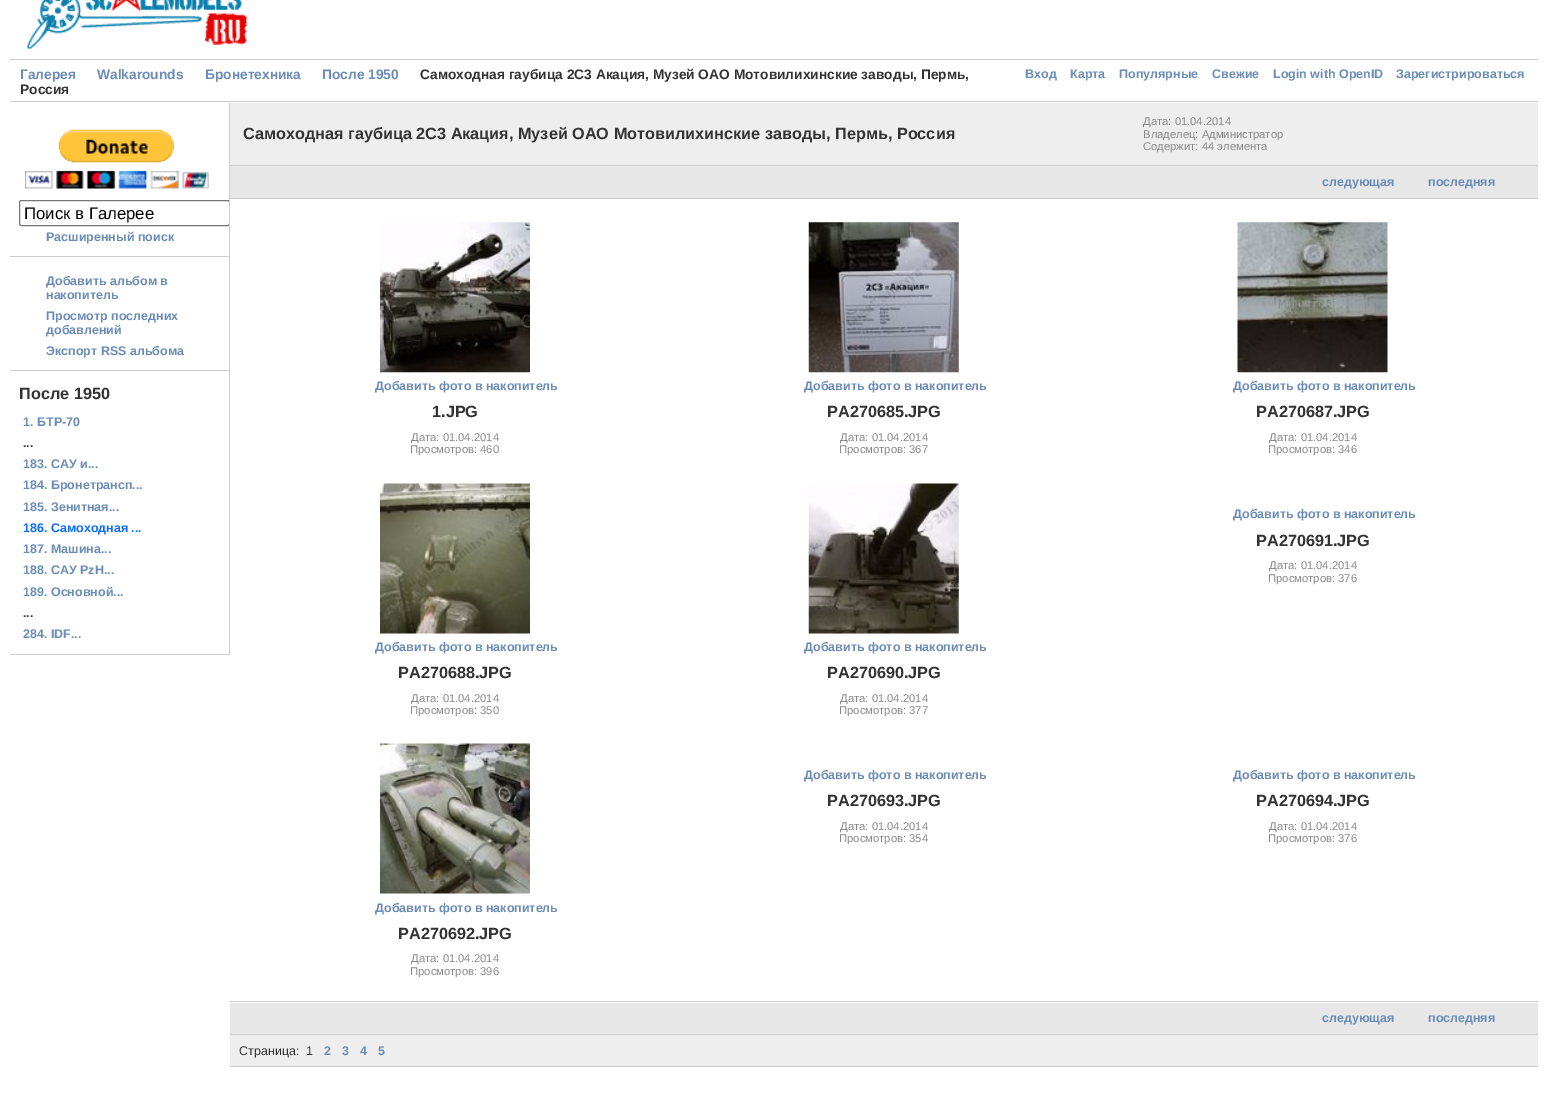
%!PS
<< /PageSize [1547 1106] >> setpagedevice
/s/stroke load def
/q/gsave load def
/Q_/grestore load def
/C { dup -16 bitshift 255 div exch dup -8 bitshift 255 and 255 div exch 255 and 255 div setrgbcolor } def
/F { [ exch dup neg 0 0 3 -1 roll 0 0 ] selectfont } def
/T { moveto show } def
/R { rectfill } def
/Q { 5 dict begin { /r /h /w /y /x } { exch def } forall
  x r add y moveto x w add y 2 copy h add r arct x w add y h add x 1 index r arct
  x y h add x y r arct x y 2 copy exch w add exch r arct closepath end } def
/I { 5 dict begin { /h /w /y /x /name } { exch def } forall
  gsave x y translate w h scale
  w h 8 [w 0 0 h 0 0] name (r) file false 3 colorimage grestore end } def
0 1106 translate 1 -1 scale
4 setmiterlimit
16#FFFFFF C
0 0 1547 1106 R
(1.rgb) 27 0 221 49 I
16#CCCCCC C
10 59 1528 1 R
10 101 1528 1 R
/LiberationSans-Bold 13.75 F
16#6B8CB7 C
(Галерея) 20 79 T
(Walkarounds) 97 79 T
(Бронетехника) 205 79 T
(После 1950) 322 79 T
16#333333 C
(Самоходная гаубица 2С3 Акация, Музей ОАО Мотовилихинские заводы, Пермь,) 420 79 T
(Россия) 20 94 T
/LiberationSans-Bold 12.5 F
16#6B8CB7 C
(Вход) 1025 78 T
(Карта) 1070 78 T
(Популярные) 1119 78 T
(Свежие) 1212 78 T
(Login with OpenID) 1273 78 T
(Зарегистрироваться) 1396 78 T
16#CCCCCC C
229 103 1 552 R
(2.rgb) 25 129 184 60 I
10 256 219 1 R
q
10 103 219 552 rectclip
16#767676 C
19.5 200.5 210 25 2 Q s
Q_
/LiberationSans-Regular 16.75 F
16#000000 C
(Поиск в Галерее) 24 219 T
/LiberationSans-Bold 12.5 F
16#6B8CB7 C
(Расширенный поиск) 46 241 T
16#CCCCCC C
10 370 219 1 R
16#6B8CB7 C
(Добавить альбом в) 46 285 T
(накопитель) 46 299 T
(Просмотр последних) 46 320 T
(добавлений) 46 334 T
(Экспорт RSS альбома) 46 355 T
16#CCCCCC C
10 654 219 1 R
/LiberationSans-Bold 16.25 F
16#333333 C
(После 1950) 19 399 T
/LiberationSans-Bold 12.5 F
16#6B8CB7 C
(1. БТР-70) 23 426 T
16#333333 C
(...) 23 447 T
16#6B8CB7 C
(183. САУ и...) 23 468 T
(184. Бронетрансп...) 23 489 T
(185. Зенитная...) 23 511 T
16#0B6CFF C
(186. Самоходная ...) 23 532 T
16#6B8CB7 C
(187. Машина...) 23 553 T
(188. САУ PzH...) 23 574 T
(189. Основной...) 23 596 T
16#333333 C
(...) 23 617 T
16#6B8CB7 C
(284. IDF...) 23 638 T
16#EEEEEE C
230 103 1308 62 R
16#CCCCCC C
230 165 1308 1 R
/LiberationSans-Bold 16.25 F
16#333333 C
(Самоходная гаубица 2С3 Акация, Музей ОАО Мотовилихинские заводы, Пермь, Россия) 243 139 T
/LiberationSans-Regular 11.25 F
16#888888 C
(Дата: 01.04.2014) 1143 125 T
(Владелец: Администратор) 1143 138 T
(Содержит: 44 элемента) 1143 150 T
16#E7E7E7 C
230 166 1308 32 R
16#CCCCCC C
230 198 1308 1 R
/LiberationSans-Bold 12.5 F
16#6B8CB7 C
(следующая) 1322 186 T
(последняя) 1428 186 T
16#CCCCCC C
230 1001 1308 1 R
(3.rgb) 380 222 150 151 I
16#6B8CB7 C
(Добавить фото в накопитель) 375 390 T
/LiberationSans-Bold 16.25 F
16#333333 C
(1.JPG) 432 417 T
/LiberationSans-Regular 11.25 F
16#888888 C
(Дата: 01.04.2014) 411 441 T
(Просмотров: 460) 410 453 T
(4.rgb) 808 222 151 151 I
/LiberationSans-Bold 12.5 F
16#6B8CB7 C
(Добавить фото в накопитель) 804 390 T
/LiberationSans-Bold 16.25 F
16#333333 C
(PA270685.JPG) 827 417 T
/LiberationSans-Regular 11.25 F
16#888888 C
(Дата: 01.04.2014) 840 441 T
(Просмотров: 367) 839 453 T
(5.rgb) 1237 222 151 151 I
/LiberationSans-Bold 12.5 F
16#6B8CB7 C
(Добавить фото в накопитель) 1233 390 T
/LiberationSans-Bold 16.25 F
16#333333 C
(PA270687.JPG) 1256 417 T
/LiberationSans-Regular 11.25 F
16#888888 C
(Дата: 01.04.2014) 1269 441 T
(Просмотров: 346) 1268 453 T
/LiberationSans-Bold 12.5 F
16#6B8CB7 C
(Добавить фото в накопитель) 1233 518 T
/LiberationSans-Bold 16.25 F
16#333333 C
(PA270691.JPG) 1256 546 T
/LiberationSans-Regular 11.25 F
16#888888 C
(Дата: 01.04.2014) 1269 569 T
(Просмотров: 376) 1268 582 T
(6.rgb) 380 483 150 151 I
/LiberationSans-Bold 12.5 F
16#6B8CB7 C
(Добавить фото в накопитель) 375 651 T
/LiberationSans-Bold 16.25 F
16#333333 C
(PA270688.JPG) 398 678 T
/LiberationSans-Regular 11.25 F
16#888888 C
(Дата: 01.04.2014) 411 702 T
(Просмотров: 350) 410 714 T
(7.rgb) 808 483 151 151 I
/LiberationSans-Bold 12.5 F
16#6B8CB7 C
(Добавить фото в накопитель) 804 651 T
/LiberationSans-Bold 16.25 F
16#333333 C
(PA270690.JPG) 827 678 T
/LiberationSans-Regular 11.25 F
16#888888 C
(Дата: 01.04.2014) 840 702 T
(Просмотров: 377) 839 714 T
/LiberationSans-Bold 12.5 F
16#6B8CB7 C
(Добавить фото в накопитель) 804 779 T
/LiberationSans-Bold 16.25 F
16#333333 C
(PA270693.JPG) 827 806 T
/LiberationSans-Regular 11.25 F
16#888888 C
(Дата: 01.04.2014) 840 830 T
(Просмотров: 354) 839 842 T
/LiberationSans-Bold 12.5 F
16#6B8CB7 C
(Добавить фото в накопитель) 1233 779 T
/LiberationSans-Bold 16.25 F
16#333333 C
(PA270694.JPG) 1256 806 T
/LiberationSans-Regular 11.25 F
16#888888 C
(Дата: 01.04.2014) 1269 830 T
(Просмотров: 376) 1268 842 T
(8.rgb) 380 743 150 151 I
/LiberationSans-Bold 12.5 F
16#6B8CB7 C
(Добавить фото в накопитель) 375 912 T
/LiberationSans-Bold 16.25 F
16#333333 C
(PA270692.JPG) 398 939 T
/LiberationSans-Regular 11.25 F
16#888888 C
(Дата: 01.04.2014) 411 962 T
(Просмотров: 396) 410 975 T
16#E7E7E7 C
230 1003 1308 31 R
16#CCCCCC C
230 1034 1308 1 R
/LiberationSans-Bold 12.5 F
16#6B8CB7 C
(следующая) 1322 1022 T
(последняя) 1428 1022 T
16#EEEEEE C
230 1035 1308 31 R
16#CCCCCC C
230 1066 1308 1 R
/LiberationSans-Regular 12.5 F
16#333333 C
(Страница:) 239 1055 T
(1) 306 1055 T
/LiberationSans-Bold 12.5 F
16#6B8CB7 C
(2) 324 1055 T
(3) 342 1055 T
(4) 360 1055 T
(5) 378 1055 T
showpage
